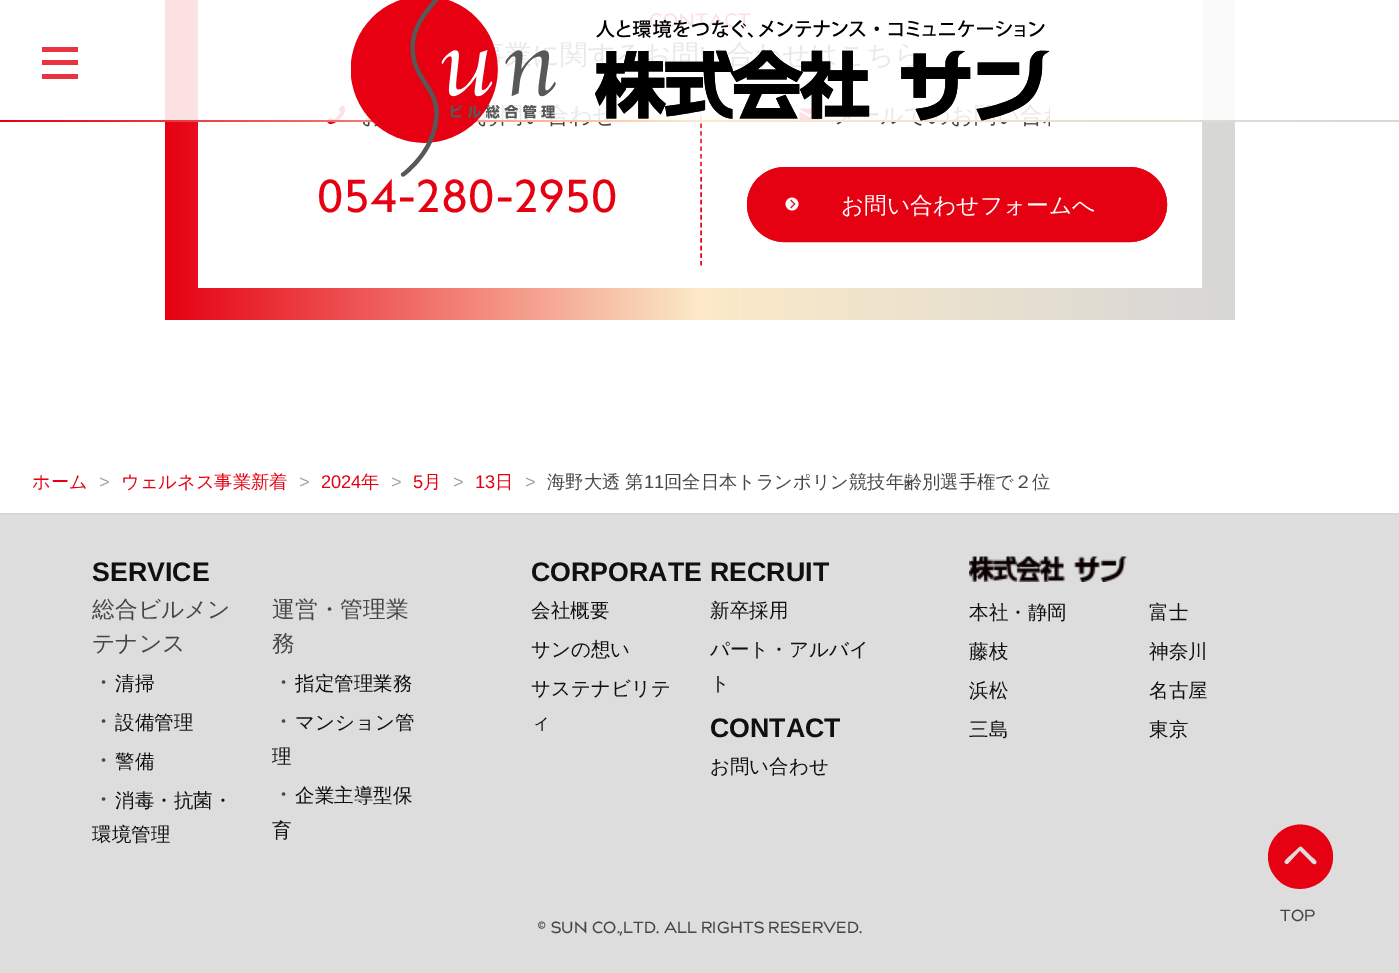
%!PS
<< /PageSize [1399 973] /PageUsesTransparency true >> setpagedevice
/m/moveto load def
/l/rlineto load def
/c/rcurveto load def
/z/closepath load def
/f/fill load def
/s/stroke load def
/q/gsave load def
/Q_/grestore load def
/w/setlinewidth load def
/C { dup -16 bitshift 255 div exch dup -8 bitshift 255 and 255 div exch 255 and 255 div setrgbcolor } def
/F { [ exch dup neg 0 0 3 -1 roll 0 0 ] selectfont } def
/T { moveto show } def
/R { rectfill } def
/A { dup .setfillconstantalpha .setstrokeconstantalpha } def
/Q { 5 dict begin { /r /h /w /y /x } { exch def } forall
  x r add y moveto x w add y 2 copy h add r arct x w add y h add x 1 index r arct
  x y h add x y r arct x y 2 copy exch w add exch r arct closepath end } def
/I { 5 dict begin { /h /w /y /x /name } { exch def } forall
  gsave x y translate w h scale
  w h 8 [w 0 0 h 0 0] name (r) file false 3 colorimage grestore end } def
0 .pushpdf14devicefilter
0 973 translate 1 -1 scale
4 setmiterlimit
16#FFFFFF C
0 0 1399 973 R
q 165 0 m 1070 0 l 0 320 l -1070 0 l z clip newpath
<< /ShadingType 2 /ColorSpace /DeviceRGB /Coords [165 132 1235 132] /Extend [true true] /Function << /FunctionType 3 /Domain [0 1] /Functions [<< /FunctionType 2 /Domain [0 1] /C0 [.902 0 .071] /C1 [.988 .918 .784] /N 1 >> << /FunctionType 2 /Domain [0 1] /C0 [.988 .918 .784] /C1 [.843 .843 .843] /N 1 >>] /Bounds [.5] /Encode [0 1 0 1] >> >> shfill Q_
198 0 1004 288 R
(2.rgb) 327 105 19 20 I
16#E50012 C
1.5 w
[4.5 3.15] 0 setdash
701 100.5 m 0 165 l s
(3.rgb) 799 108 21 12 I
0.88 A
16#FFFFFF C
165 0 1070 120 R
1 A
16#EA3341 C
42 47 36 5 R
42 60 36 5 R
42 74 36 5 R
q 0 120 m 1399 0 l 0 2 l -1399 0 l z clip newpath
<< /ShadingType 2 /ColorSpace /DeviceRGB /Coords [0 121 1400 121] /Extend [true true] /Function << /FunctionType 3 /Domain [0 1] /Functions [<< /FunctionType 2 /Domain [0 1] /C0 [.902 0 .071] /C1 [.988 .918 .784] /N 1 >> << /FunctionType 2 /Domain [0 1] /C0 [.988 .918 .784] /C1 [.843 .843 .843] /N 1 >>] /Bounds [.5] /Encode [0 1 0 1] >> >> shfill Q_
16#E50012 C
747 167 420 75 37.5 Q f
(4.rgb) 785 197 14 14 I
3 w
[] 0 setdash
748.5 168.5 417 72 36 Q s
(1.rgb) 351 0 699 177 I
/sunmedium-Regular 45.5 F
317 212 m 1.4 0 (054-280-2950) ashow
/WenQuanYiZenHei-Medium 22.75 F
16#FFFFFF C
(お問い合わせフォームへ) 841 213 T
/WenQuanYiZenHei-Medium 18.25 F
16#E50012 C
(ホーム) 32 488 T
/LiberationSans-Regular 18.25 F
16#A5A2A2 C
(>) 99 488 T
/WenQuanYiZenHei-Medium 18.25 F
16#E50012 C
(ウェルネス事業新着) 121 488 T
/LiberationSans-Regular 18.25 F
16#A5A2A2 C
(>) 299 488 T
16#E50012 C
(2024) 321 488 T
/WenQuanYiZenHei-Medium 18.25 F
(年) 361 488 T
/LiberationSans-Regular 18.25 F
16#A5A2A2 C
(>) 391 488 T
16#E50012 C
(5) 413 488 T
/WenQuanYiZenHei-Medium 18.25 F
(月) 423 488 T
/LiberationSans-Regular 18.25 F
16#A5A2A2 C
(>) 453 488 T
16#E50012 C
(13) 475 488 T
/WenQuanYiZenHei-Medium 18.25 F
(日) 495 488 T
/LiberationSans-Regular 18.25 F
16#A5A2A2 C
(>) 525 488 T
/WenQuanYiZenHei-Medium 18.25 F
16#4A4545 C
(海野大透 第) 547 488 T
/LiberationSans-Regular 18.25 F
(11) 644 488 T
/WenQuanYiZenHei-Medium 18.25 F
(回全日本トランポリン競技年齢別選手権で２位) 664 488 T
16#DDDDDD C
0 515 1399 458 R
16#D7D7D7 C
0 513 1399 2 R
/LiberationSans-Bold 26.75 F
16#101010 C
(SERVICE) 92 581 T
/WenQuanYiZenHei-Medium 22.75 F
16#4A4545 C
(総合ビルメン) 92 617 T
(テナンス) 92 651 T
(・) 92 690 T
/WenQuanYiZenHei-Medium 19.5 F
16#101010 C
(清掃) 115 690 T
/WenQuanYiZenHei-Medium 22.75 F
16#4A4545 C
(・) 92 729 T
/WenQuanYiZenHei-Medium 19.5 F
16#101010 C
(設備管理) 115 729 T
/WenQuanYiZenHei-Medium 22.75 F
16#4A4545 C
(・) 92 768 T
/WenQuanYiZenHei-Medium 19.5 F
16#101010 C
(警備) 115 768 T
/WenQuanYiZenHei-Medium 22.75 F
16#4A4545 C
(・) 92 807 T
/WenQuanYiZenHei-Medium 19.5 F
16#101010 C
(消毒・抗菌・) 115 807 T
(環境管理) 92 841 T
/WenQuanYiZenHei-Medium 22.75 F
16#4A4545 C
(運営・管理業) 272 617 T
(務) 272 651 T
(・) 272 690 T
/WenQuanYiZenHei-Medium 19.5 F
16#101010 C
(指定管理業務) 295 690 T
/WenQuanYiZenHei-Medium 22.75 F
16#4A4545 C
(・) 272 729 T
/WenQuanYiZenHei-Medium 19.5 F
16#101010 C
(マンション管) 295 729 T
(理) 272 763 T
/WenQuanYiZenHei-Medium 22.75 F
16#4A4545 C
(・) 272 802 T
/WenQuanYiZenHei-Medium 19.5 F
16#101010 C
(企業主導型保) 295 802 T
(育) 272 837 T
/LiberationSans-Bold 26.75 F
(CORPORATE) 531 581 T
/WenQuanYiZenHei-Medium 19.5 F
(会社概要) 531 617 T
(サンの想い) 531 656 T
(サステナビリテ) 531 695 T
(ィ) 531 729 T
/LiberationSans-Bold 26.75 F
(RECRUIT) 710 581 T
/WenQuanYiZenHei-Medium 19.5 F
(新卒採用) 710 617 T
(パート・アルバイ) 710 656 T
(ト) 710 690 T
/LiberationSans-Bold 26.75 F
(CONTACT) 710 737 T
/WenQuanYiZenHei-Medium 19.5 F
(お問い合わせ) 710 773 T
(5.rgb) 969 556 158 26 I
(本社・静岡) 969 619 T
(藤枝) 969 658 T
(浜松) 969 697 T
(三島) 969 736 T
(富士) 1149 619 T
(神奈川) 1149 658 T
(名古屋) 1149 697 T
(東京) 1149 736 T
16#E50012 C
1268 857 m 0 6 2 13 6 18 c 17 26 59 13 59 -18 c 0 -31 -39 -44 -58 -20 c -5 6 -7 13 -7 20 c z 1302 847 m 9 9 l 1 1 8 5 5 8 c -3 2 -6 -3 -7 -4 c -9 -9 l -12 13 l -2 0 l -4 -1 0 -5 1 -6 c 10 -9 l 1 -1 3 -4 5 -2 c z f
/sunmedium-Regular 16 F
16#4A4545 C
1280 921 m .3 0 (TOP) ashow
537 933 m .3 0 (© SUN CO.,LTD. ALL RIGHTS RESERVED.) ashow
.poppdf14devicefilter showpage
